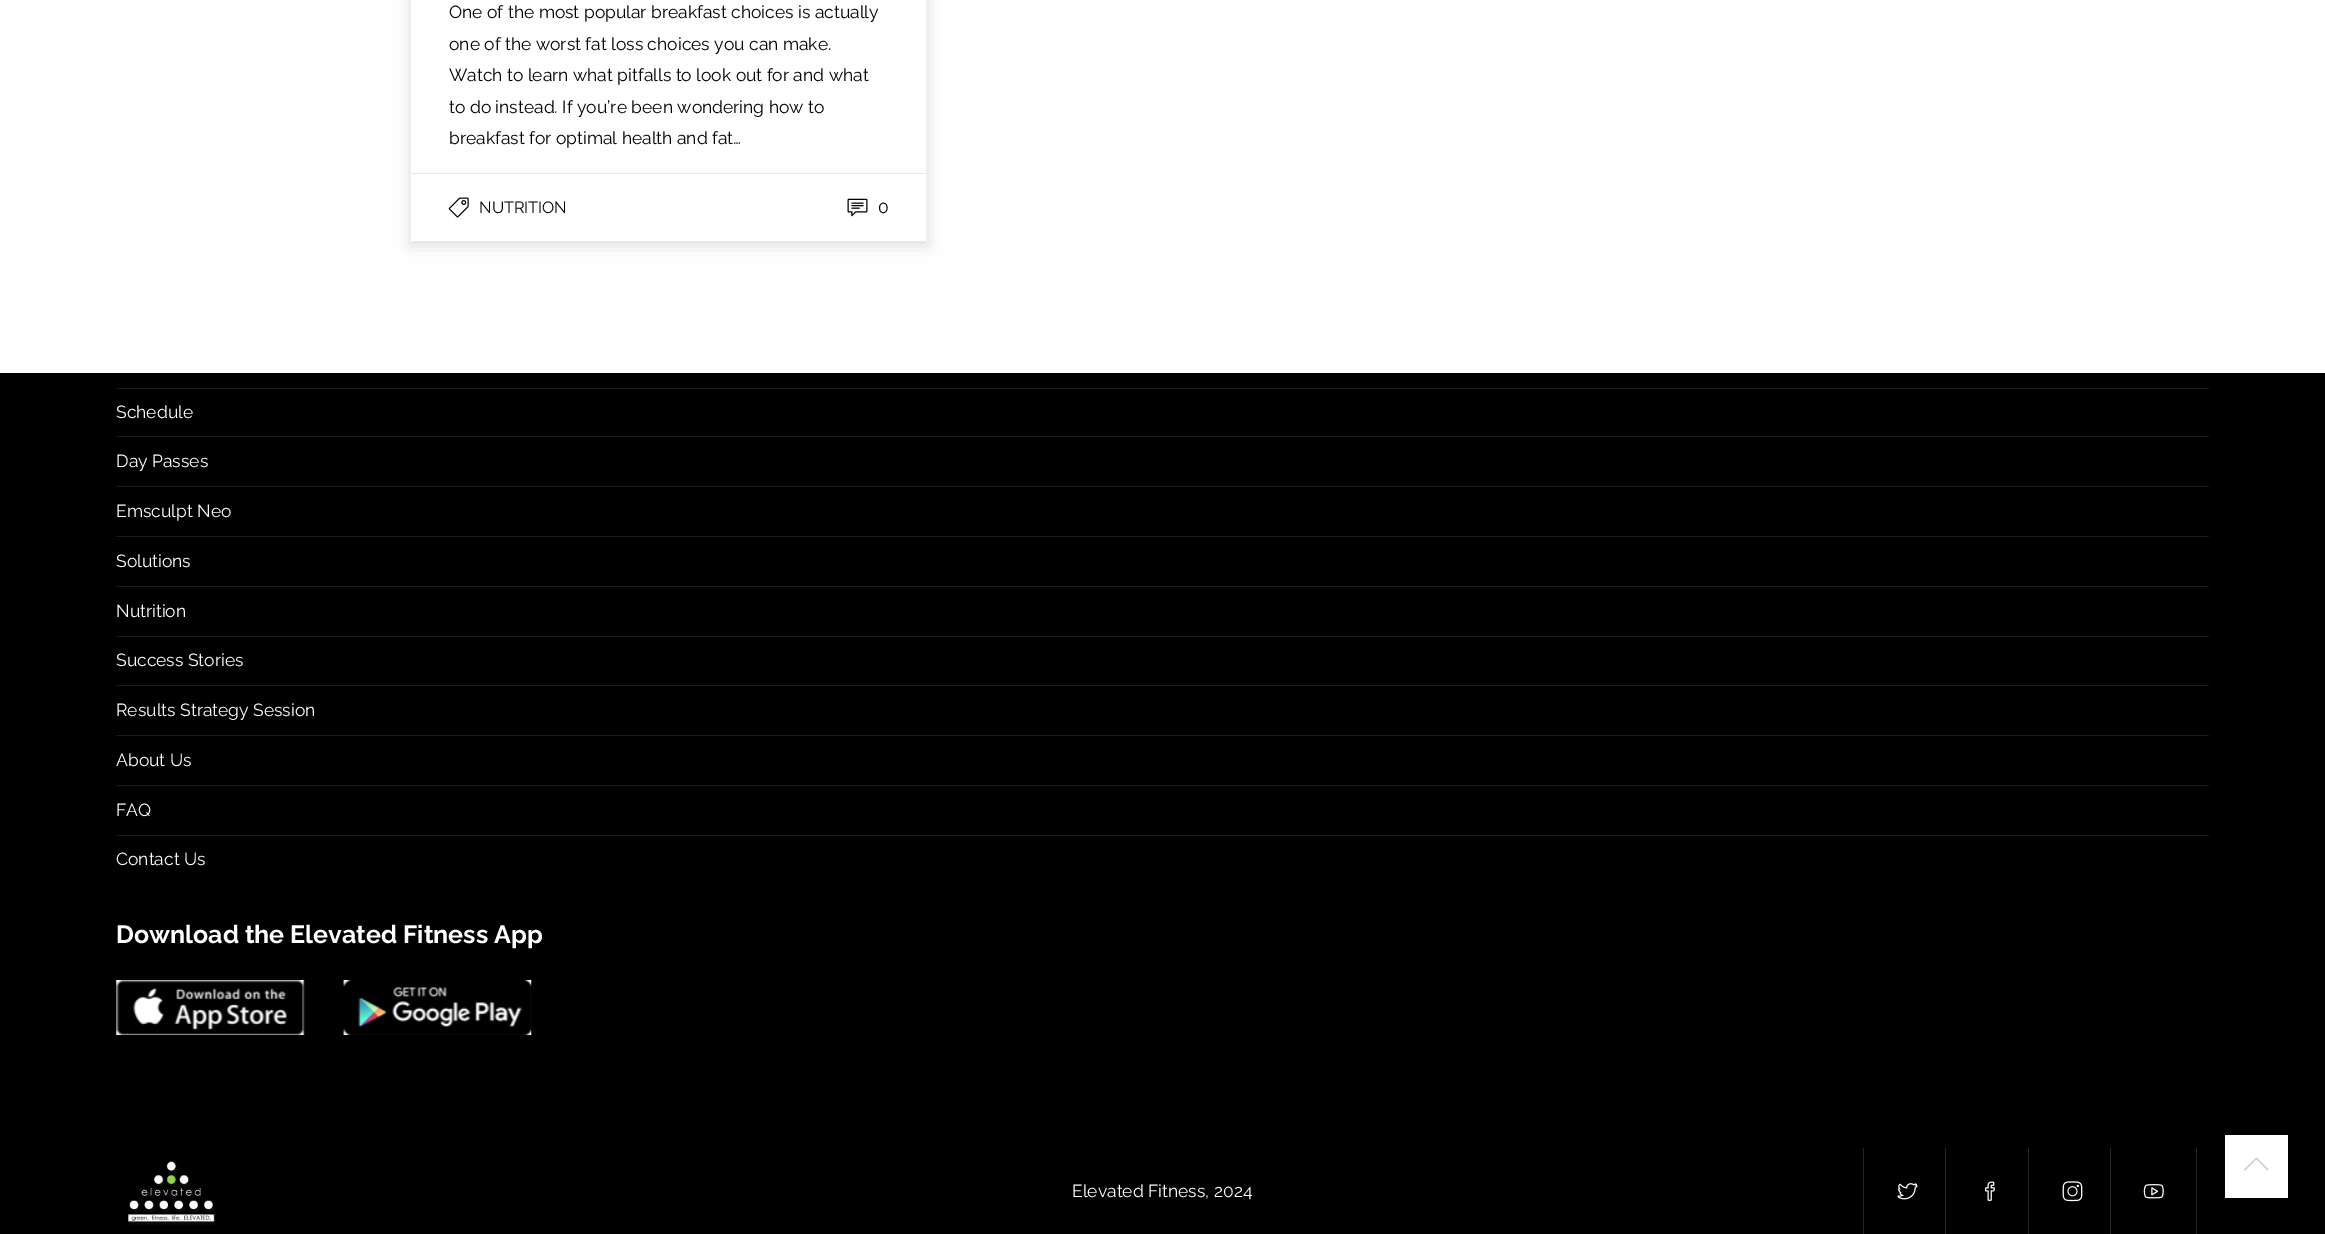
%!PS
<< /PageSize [2325 1234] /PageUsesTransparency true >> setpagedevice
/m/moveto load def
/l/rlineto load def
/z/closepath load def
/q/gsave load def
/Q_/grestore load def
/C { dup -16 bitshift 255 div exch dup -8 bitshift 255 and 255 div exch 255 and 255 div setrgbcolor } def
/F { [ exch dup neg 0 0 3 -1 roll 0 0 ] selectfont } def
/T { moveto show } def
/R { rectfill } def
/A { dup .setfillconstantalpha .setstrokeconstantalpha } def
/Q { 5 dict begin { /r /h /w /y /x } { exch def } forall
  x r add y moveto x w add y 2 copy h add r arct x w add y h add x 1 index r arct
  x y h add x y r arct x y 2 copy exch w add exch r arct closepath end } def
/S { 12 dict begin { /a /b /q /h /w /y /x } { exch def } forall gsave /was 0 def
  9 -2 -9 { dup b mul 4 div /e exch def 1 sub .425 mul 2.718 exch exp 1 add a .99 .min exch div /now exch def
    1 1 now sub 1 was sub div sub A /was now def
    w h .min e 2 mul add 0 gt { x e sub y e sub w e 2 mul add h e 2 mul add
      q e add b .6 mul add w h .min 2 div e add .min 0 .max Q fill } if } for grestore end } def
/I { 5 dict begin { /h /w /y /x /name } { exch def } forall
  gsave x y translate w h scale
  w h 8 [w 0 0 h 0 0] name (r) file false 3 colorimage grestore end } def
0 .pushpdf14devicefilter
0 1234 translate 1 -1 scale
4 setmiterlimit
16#000000 C
0 0 2325 1234 R
16#FFFFFF C
0 0 2325 373 R
q
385 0 m 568 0 l 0 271 l -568 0 l z 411 -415 m 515 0 l 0 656 l -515 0 l z eoclip newpath
16#000000 C
410 -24 518 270 0 8 .12 S
Q_
/Raleway-Regular 17.5 F
16#000000 C
(One of the most popular breakfast choices is actually) 449 18 T
(one of the worst fat loss choices you can make.) 449 50 T
(Watch to learn what pitfalls to look out for and what) 449 81 T
(to do instead. If you’re been wondering how to) 449 113 T
(breakfast for optimal health and fat…) 449 144 T
16#E9E9E9 C
411 173 515 1 R
(1.rgb) 448 197 21 21 I
/Raleway-Regular 16.25 F
16#000000 C
(NUTRITION) 479 213 T
(2.rgb) 847 198 21 19 I
/Raleway-Regular 17.5 F
(0) 878 213 T
16#1A1A1A C
116 388 2093 1 R
116 436 2093 1 R
16#FFFFFF C
(Schedule) 116 418 T
16#1A1A1A C
116 486 2093 1 R
16#FFFFFF C
(Day Passes) 116 467 T
16#1A1A1A C
116 536 2093 1 R
16#FFFFFF C
(Emsculpt Neo) 116 517 T
16#1A1A1A C
116 586 2093 1 R
16#FFFFFF C
(Solutions) 116 567 T
16#1A1A1A C
116 636 2093 1 R
16#FFFFFF C
(Nutrition) 116 617 T
16#1A1A1A C
116 685 2093 1 R
16#FFFFFF C
(Success Stories) 116 666 T
16#1A1A1A C
116 735 2093 1 R
16#FFFFFF C
(Results Strategy Session) 116 716 T
16#1A1A1A C
116 785 2093 1 R
16#FFFFFF C
(About Us) 116 766 T
16#1A1A1A C
116 835 2093 1 R
16#FFFFFF C
(FAQ) 116 816 T
(Contact Us) 116 865 T
/Raleway-Bold 25 F
(Download the Elevated Fitness App) 116 943 T
(3.rgb) 116 980 189 55 I
(4.rgb) 343 980 189 55 I
(5.rgb) 128 1161 87 64 I
/Raleway-Regular 17.5 F
(Elevated Fitness, 2024) 1072 1197 T
16#262626 C
1863 1148 1 86 R
(6.rgb) 1897 1183 21 17 I
1945 1148 1 86 R
(7.rgb) 1985 1181 10 20 I
2028 1148 1 86 R
(8.rgb) 2062 1181 21 21 I
2196 1148 1 86 R
2110 1148 1 86 R
(9.rgb) 2143 1184 21 15 I
16#FFFFFF C
2225 1135 63 63 R
(10.rgb) 2244 1157 25 14 I
.poppdf14devicefilter showpage
